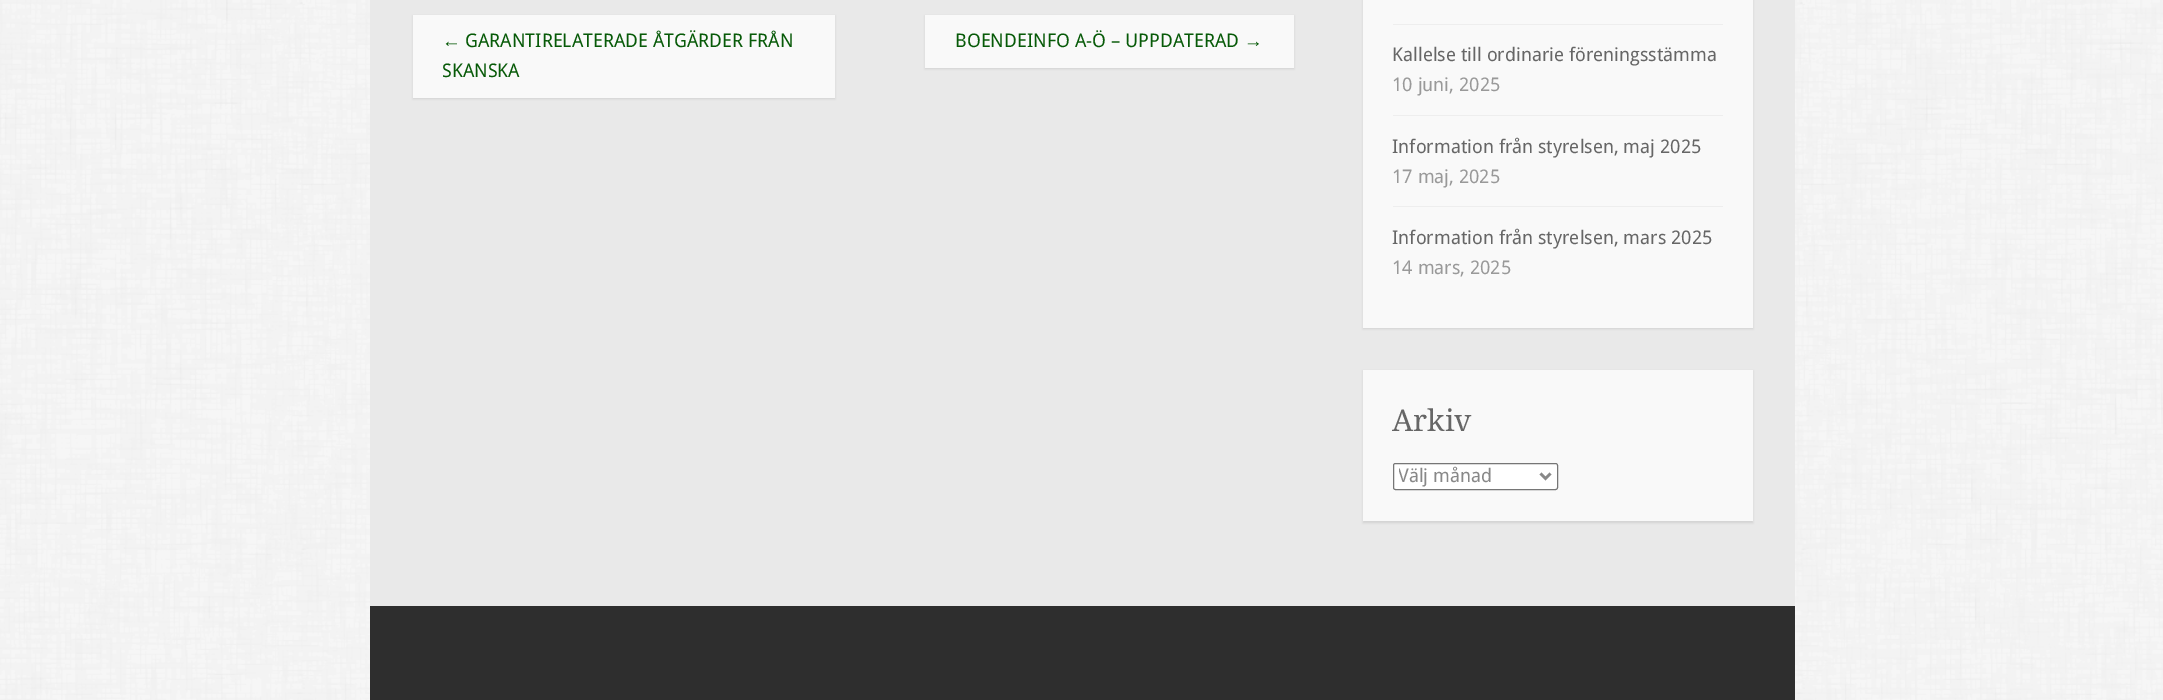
%!PS
<< /PageSize [2163 700] /PageUsesTransparency true >> setpagedevice
/m/moveto load def
/l/rlineto load def
/f/fill load def
/s/stroke load def
/q/gsave load def
/Q_/grestore load def
/w/setlinewidth load def
/C { dup -16 bitshift 255 div exch dup -8 bitshift 255 and 255 div exch 255 and 255 div setrgbcolor } def
/F { [ exch dup neg 0 0 3 -1 roll 0 0 ] selectfont } def
/T { moveto show } def
/R { rectfill } def
/A { dup .setfillconstantalpha .setstrokeconstantalpha } def
/Q { 5 dict begin { /r /h /w /y /x } { exch def } forall
  x r add y moveto x w add y 2 copy h add r arct x w add y h add x 1 index r arct
  x y h add x y r arct x y 2 copy exch w add exch r arct closepath end } def
/S { 12 dict begin { /a /b /q /h /w /y /x } { exch def } forall gsave /was 0 def
  9 -2 -9 { dup b mul 4 div /e exch def 1 sub .425 mul 2.718 exch exp 1 add a .99 .min exch div /now exch def
    1 1 now sub 1 was sub div sub A /was now def
    w h .min e 2 mul add 0 gt { x e sub y e sub w e 2 mul add h e 2 mul add
      q e add b .6 mul add w h .min 2 div e add .min 0 .max Q fill } if } for grestore end } def
/I { 5 dict begin { /h /w /y /x /name } { exch def } forall
  gsave x y translate w h scale
  w h 8 [w 0 0 h 0 0] name (r) file false 3 colorimage grestore end } def
0 .pushpdf14devicefilter
0 700 translate 1 -1 scale
4 setmiterlimit
16#FFFFFF C
0 0 2163 700 R
(1.rgb) 0 0 2163 700 I
16#E9E9E9 C
370 0 1425 606 R
16#000000 C
413 16 422 83 0 1 .1 S
16#F9F9F9 C
413 15 422 83 R
/LiberationSans-Regular 18.75 F
16#075A08 C
(←) 442 47 T
/DroidSans-Regular 18.75 F
(GARANTIRELATERADE ÅTGÄRDER FRÅN) 465 47 T
(SKANSKA) 442 77 T
16#000000 C
925 16 369 53 0 1 .1 S
16#F9F9F9 C
925 15 369 53 R
16#075A08 C
(BOENDEINFO A-Ö – UPPDATERAD) 955 47 T
/LiberationSans-Regular 18.75 F
(→) 1244 47 T
16#000000 C
1363 -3 390 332 0 1 .1 S
16#F9F9F9 C
1363 0 390 328 R
16#EEEEEE C
1393 24 330 1 R
/DroidSans-Regular 18.75 F
16#666666 C
(Kallelse till ordinarie föreningsstämma) 1392 61 T
16#999999 C
(10 juni, 2025) 1392 91 T
16#EEEEEE C
1393 115 330 1 R
16#666666 C
(Information från styrelsen, maj 2025) 1392 153 T
16#999999 C
(17 maj, 2025) 1392 183 T
16#EEEEEE C
1393 206 330 1 R
16#666666 C
(Information från styrelsen, mars 2025) 1392 244 T
16#999999 C
(14 mars, 2025) 1392 274 T
16#000000 C
1363 371 390 152 0 1 .1 S
16#F9F9F9 C
1363 370 390 151 R
/DroidSerif-Regular 30 F
16#666666 C
(Arkiv) 1392 431 T
16#FFFFFF C
1393.5 463.5 164 26 2 Q q f Q_
16#767676 C
s
16#888888 C
2.5 w
1540.5 473.5 m 5 5 l 5 -5 l s
q
1399 464 137 25 rectclip
/DroidSans-Regular 18.75 F
(Välj månad) 1398 482 T
Q_
16#2E2E2E C
370 606 1425 94 R
.poppdf14devicefilter showpage
